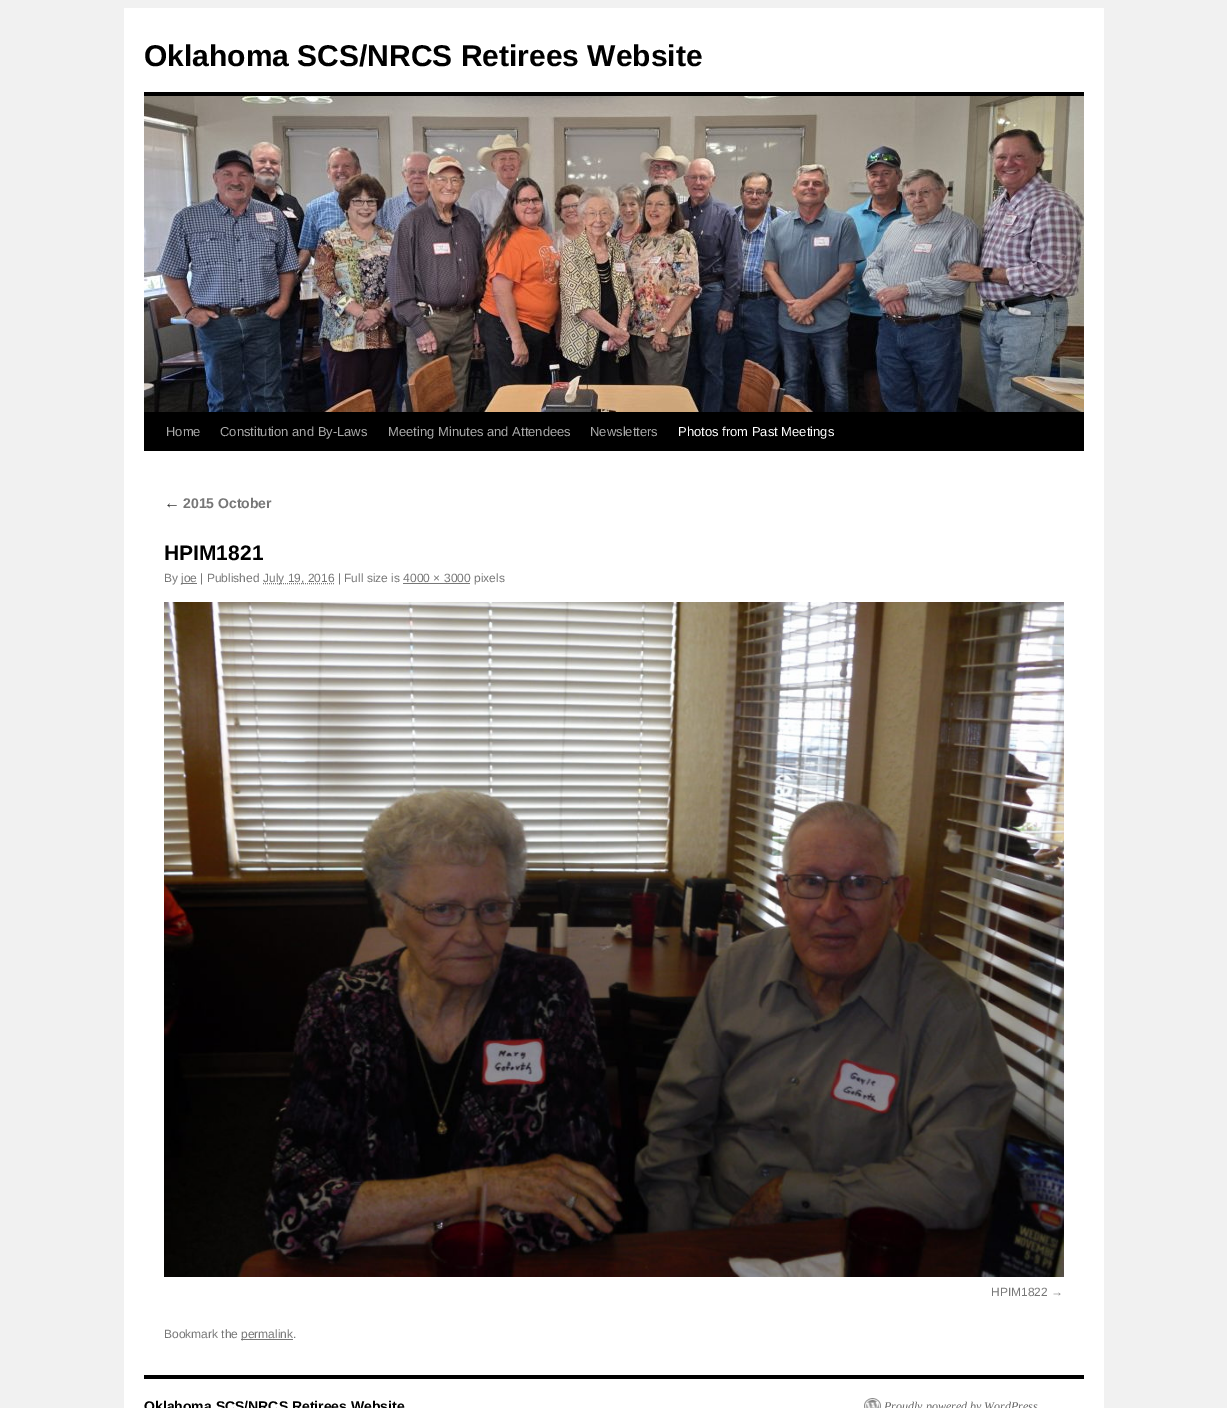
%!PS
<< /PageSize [1227 1408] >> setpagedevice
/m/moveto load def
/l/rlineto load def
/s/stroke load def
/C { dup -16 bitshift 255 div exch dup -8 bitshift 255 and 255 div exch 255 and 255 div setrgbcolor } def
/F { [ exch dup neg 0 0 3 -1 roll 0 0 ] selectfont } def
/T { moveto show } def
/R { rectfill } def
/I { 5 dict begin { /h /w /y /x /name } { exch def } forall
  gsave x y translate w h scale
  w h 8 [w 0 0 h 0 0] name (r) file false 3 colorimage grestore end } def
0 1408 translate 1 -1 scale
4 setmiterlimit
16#F1F1F1 C
0 0 1227 1408 R
16#FFFFFF C
124 8 980 1400 R
/LiberationSans-Bold 30 F
16#000000 C
(Oklahoma SCS/NRCS Retirees Website) 144 66 T
144 92 940 4 R
144 412 940 39 R
(1.rgb) 144 96 940 316 I
/LiberationSans-Regular 13 F
16#AAAAAA C
(Home) 166 436 T
(Constitution and By-Laws) 220 436 T
(Meeting Minutes and Attendees) 388 436 T
(Newsletters) 590 436 T
16#FFFFFF C
(Photos from Past Meetings) 678 436 T
/LiberationSerif-Italic 16 F
16#333333 C
(←) 164 508 T
/LiberationSans-Bold 14 F
16#777777 C
(2015 October) 183 508 T
/LiberationSans-Bold 21 F
16#000000 C
(HPIM1821) 164 560 T
/LiberationSans-Regular 12 F
16#777777 C
(By) 164 582 T
181 583 16 1 R
(joe | Published) 181 582 T
[1 1] 0 setdash
263 583.5 m 71 0 l s
(July 19, 2016 | Full size is 4000 × 3000 pixels) 263 582 T
403 583 67 1 R
(2.rgb) 164 602 900 675 I
(HPIM1822 →) 991 1296 T
(Bookmark the) 164 1338 T
241 1339 52 1 R
(permalink.) 241 1338 T
16#000000 C
144 1375 940 4 R
/LiberationSans-Bold 14 F
(Oklahoma SCS/NRCS Retirees Website) 144 1411 T
(3.rgb) 864 1398 17 10 I
/LiberationSerif-Italic 12 F
16#666666 C
(Proudly powered by WordPress) 884 1410 T
showpage
